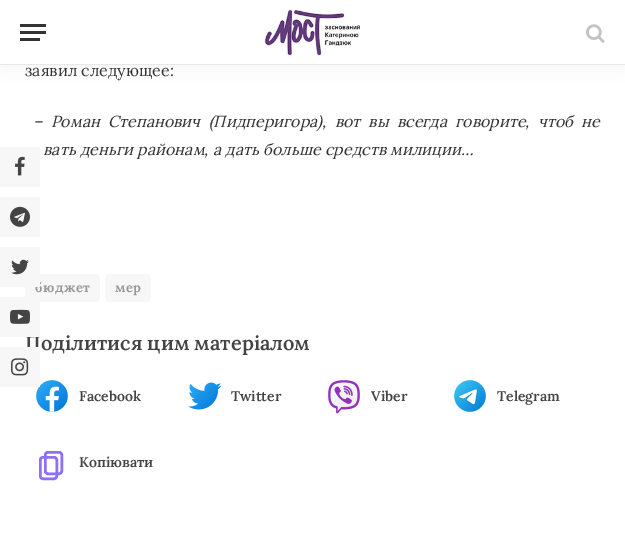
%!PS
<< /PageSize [625 544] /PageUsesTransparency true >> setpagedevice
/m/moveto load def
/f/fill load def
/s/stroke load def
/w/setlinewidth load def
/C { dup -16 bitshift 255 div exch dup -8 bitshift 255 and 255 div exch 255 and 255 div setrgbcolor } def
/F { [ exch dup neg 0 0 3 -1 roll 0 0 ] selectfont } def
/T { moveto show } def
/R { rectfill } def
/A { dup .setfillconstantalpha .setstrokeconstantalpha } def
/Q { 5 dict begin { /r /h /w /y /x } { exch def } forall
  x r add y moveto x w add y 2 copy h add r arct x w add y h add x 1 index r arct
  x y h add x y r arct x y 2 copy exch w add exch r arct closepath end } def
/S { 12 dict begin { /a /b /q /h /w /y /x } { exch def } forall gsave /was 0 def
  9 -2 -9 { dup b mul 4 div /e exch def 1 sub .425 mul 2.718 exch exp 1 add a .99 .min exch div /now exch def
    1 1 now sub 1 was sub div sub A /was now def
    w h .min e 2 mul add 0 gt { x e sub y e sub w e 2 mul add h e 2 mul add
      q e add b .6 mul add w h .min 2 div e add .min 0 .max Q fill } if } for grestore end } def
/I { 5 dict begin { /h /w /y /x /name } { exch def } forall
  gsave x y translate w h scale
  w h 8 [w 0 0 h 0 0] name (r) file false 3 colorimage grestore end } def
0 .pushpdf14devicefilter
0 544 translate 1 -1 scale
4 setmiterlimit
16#FFFFFF C
0 0 625 544 R
16#F7F7F7 C
0 147 40 40 R
(1.rgb) 15 156 10 20 I
0 197 40 40 R
(2.rgb) 10 206 20 21 I
25 274 75 28 5 Q f
/Lora-Bold 13 F
16#999999 C
35 292 m .5 0 (бюджет) ashow
16#F7F7F7 C
0 247 40 40 R
(3.rgb) 11 259 18 16 I
/Lora-SemiBold 20 F
16#444444 C
(Поділитися цим матеріалом) 25 350 T
16#F7F7F7 C
0 297 40 40 R
(4.rgb) 10 309 20 15 I
(8.rgb) 36 380 32 32 I
0 347 40 40 R
(5.rgb) 11 358 18 18 I
16#000000 C
0 0 625 65 0 10 .05 S
16#FFFFFF C
0 0 625 64 R
16#E8E8E8 C
0 64 625 1 R
16#333333 C
20 38 20 3 R
20 24 26 3 R
20 31 26 3 R
(6.rgb) 264 9 96 47 I
(7.rgb) 586 24 19 19 I
/Lora-Regular 16 F
(заявил следующее:) 25 76 T
/Lora-Italic 16 F
33 127 m 4 0 32 (– Роман Степанович \(Пидперигора\), вот вы всегда говорите, чтоб не) widthshow
(вать деньги районам, а дать больше средств милиции…) 43 155 T
16#F7F7F7 C
105 274 46 28 5 Q f
/Lora-Bold 13 F
16#999999 C
115 292 m .5 0 (мер) ashow
/Lora-SemiBold 14 F
16#444444 C
(Facebook) 79 401 T
(9.rgb) 188 382 34 28 I
(Twitter) 231 401 T
(10.rgb) 328 380 32 34 I
(Viber) 371 401 T
(11.rgb) 454 380 32 32 I
(Telegram) 497 401 T
16#8D6FF8 C
2.5 w
45.25 452.25 16.5 21.5 2.75 Q s
40.25 457.25 16.5 21.5 2.75 Q s
16#444444 C
(Копіювати) 79 467 T
.poppdf14devicefilter showpage
